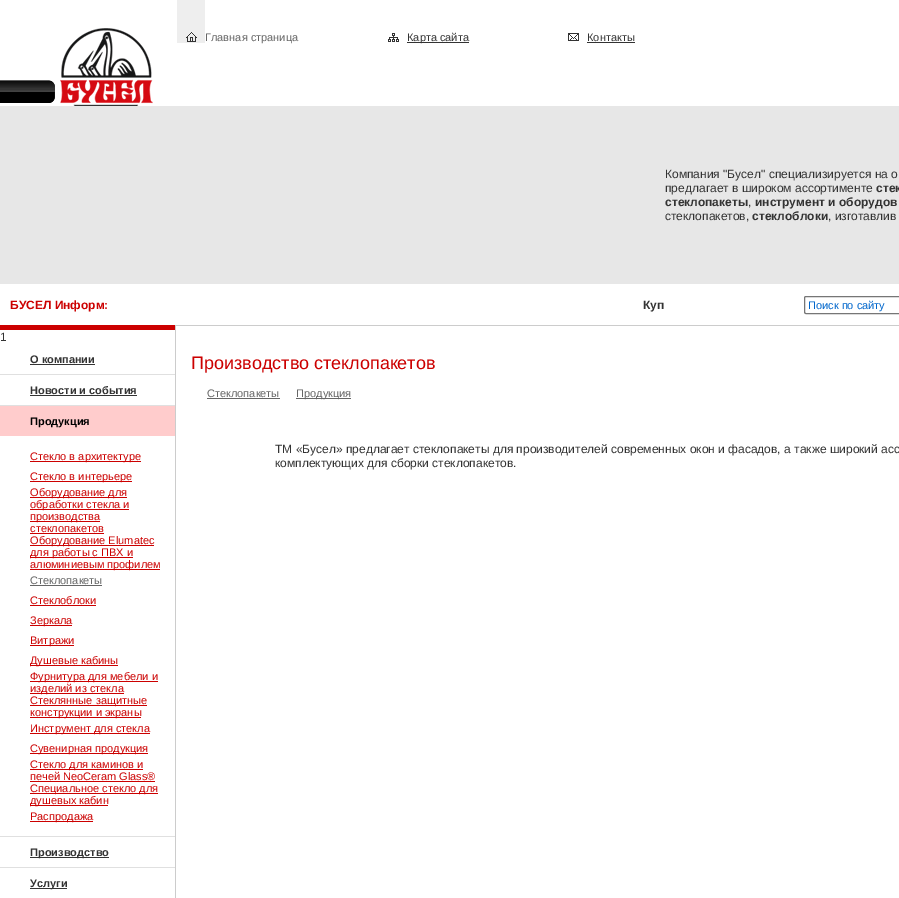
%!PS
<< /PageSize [899 898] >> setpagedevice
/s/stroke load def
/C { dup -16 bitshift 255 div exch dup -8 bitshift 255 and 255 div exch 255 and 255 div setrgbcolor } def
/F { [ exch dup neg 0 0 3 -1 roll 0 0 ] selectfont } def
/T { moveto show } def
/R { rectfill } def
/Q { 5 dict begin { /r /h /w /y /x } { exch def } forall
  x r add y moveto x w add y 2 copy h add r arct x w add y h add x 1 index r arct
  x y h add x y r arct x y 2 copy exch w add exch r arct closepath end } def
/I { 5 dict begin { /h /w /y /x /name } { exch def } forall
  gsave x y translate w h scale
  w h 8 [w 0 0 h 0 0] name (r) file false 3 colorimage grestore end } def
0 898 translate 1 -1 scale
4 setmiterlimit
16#FFFFFF C
0 0 899 898 R
(1.rgb) 60 28 93 78 I
16#EEEEEE C
177 0 28 43 R
(2.rgb) 186 32 11 10 I
/LiberationSans-Regular 11 F
16#666666 C
(Главная страница) 205 41 T
(3.rgb) 388 33 11 9 I
16#333333 C
407 42 62 1 R
(Карта сайта) 407 41 T
(4.rgb) 568 33 11 8 I
(Контакты) 587 41 T
587 42 48 1 R
(5.rgb) 0 80 55 23 I
16#E7E7E7 C
0 106 899 178 R
/LiberationSans-Regular 12 F
16#333333 C
(Компания "Бусел" специализируется на о) 665 178 T
(предлагает в широком ассортименте) 665 192 T
/LiberationSans-Bold 12 F
(стек) 876 192 T
(стеклопакеты) 665 206 T
/LiberationSans-Regular 12 F
(,) 748 206 T
/LiberationSans-Bold 12 F
(инструмент и оборудов) 755 206 T
/LiberationSans-Regular 12 F
(стеклопакетов,) 665 220 T
/LiberationSans-Bold 12 F
(стеклоблоки) 752 220 T
/LiberationSans-Regular 12 F
(, изготавлив) 828 220 T
/LiberationSans-Bold 12 F
16#CC0000 C
(БУСЕЛ Информ:) 10 309 T
16#333333 C
(Куп) 643 309 T
16#767676 C
804.5 296.5 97 17 1.5 Q s
/LiberationSans-Regular 11 F
16#0066CC C
(Поиск по сайту) 808 309 T
16#CCCCCC C
175 325 1 573 R
16#CC0000 C
0 325 175 5 R
/LiberationSans-Regular 12 F
16#333333 C
(1) 0 341 T
/LiberationSans-Bold 11 F
(О компании) 30 363 T
30 364 65 1 R
16#E0E0E0 C
0 374 175 1 R
16#333333 C
(Новости и события) 30 394 T
30 395 107 1 R
16#E0E0E0 C
0 405 175 1 R
16#FFCCCC C
0 406 175 30 R
16#000000 C
(Продукция) 30 425 T
16#CC0000 C
30 461 111 1 R
/LiberationSans-Regular 11 F
(Стекло в архитектуре) 30 460 T
30 481 102 1 R
(Стекло в интерьере) 30 480 T
30 497 97 1 R
(Оборудование для) 30 496 T
30 509 99 1 R
(обработки стекла и) 30 508 T
30 521 70 1 R
(производства) 30 520 T
(стеклопакетов) 30 532 T
30 533 74 1 R
30 545 124 1 R
(Оборудование Elumatec) 30 544 T
30 557 103 1 R
(для работы с ПВХ и) 30 556 T
30 569 130 1 R
(алюминиевым профилем) 30 568 T
16#666666 C
(Стеклопакеты) 30 584 T
30 585 72 1 R
16#CC0000 C
(Стеклоблоки) 30 604 T
30 605 66 1 R
30 625 42 1 R
(Зеркала) 30 624 T
30 645 44 1 R
(Витражи) 30 644 T
30 665 88 1 R
(Душевые кабины) 30 664 T
30 681 128 1 R
(Фурнитура для мебели и) 30 680 T
30 693 94 1 R
(изделий из стекла) 30 692 T
30 705 117 1 R
(Стеклянные защитные) 30 704 T
30 717 111 1 R
(конструкции и экраны) 30 716 T
30 733 120 1 R
(Инструмент для стекла) 30 732 T
30 753 118 1 R
(Сувенирная продукция) 30 752 T
30 769 113 1 R
(Стекло для каминов и) 30 768 T
(печей NeoCeram Glass®) 30 780 T
30 781 125 1 R
30 793 128 1 R
(Специальное стекло для) 30 792 T
30 805 78 1 R
(душевых кабин) 30 804 T
30 821 63 1 R
(Распродажа) 30 820 T
16#E0E0E0 C
0 836 175 1 R
16#333333 C
30 857 79 1 R
/LiberationSans-Bold 11 F
(Производство) 30 856 T
16#E0E0E0 C
0 867 175 1 R
16#333333 C
30 888 37 1 R
(Услуги) 30 887 T
16#CCCCCC C
176 325 723 1 R
/LiberationSans-Regular 18 F
16#CC0000 C
(Производство стеклопакетов) 191 369 T
/LiberationSans-Regular 11 F
16#666666 C
(Стеклопакеты) 207 397 T
207 398 73 1 R
296 398 55 1 R
(Продукция) 296 397 T
/LiberationSans-Regular 12 F
16#333333 C
(ТМ «Бусел» предлагает стеклопакеты для производителей современных окон и фасадов, а также широкий асс) 275 453 T
(комплектующих для сборки стеклопакетов.) 275 467 T
showpage
